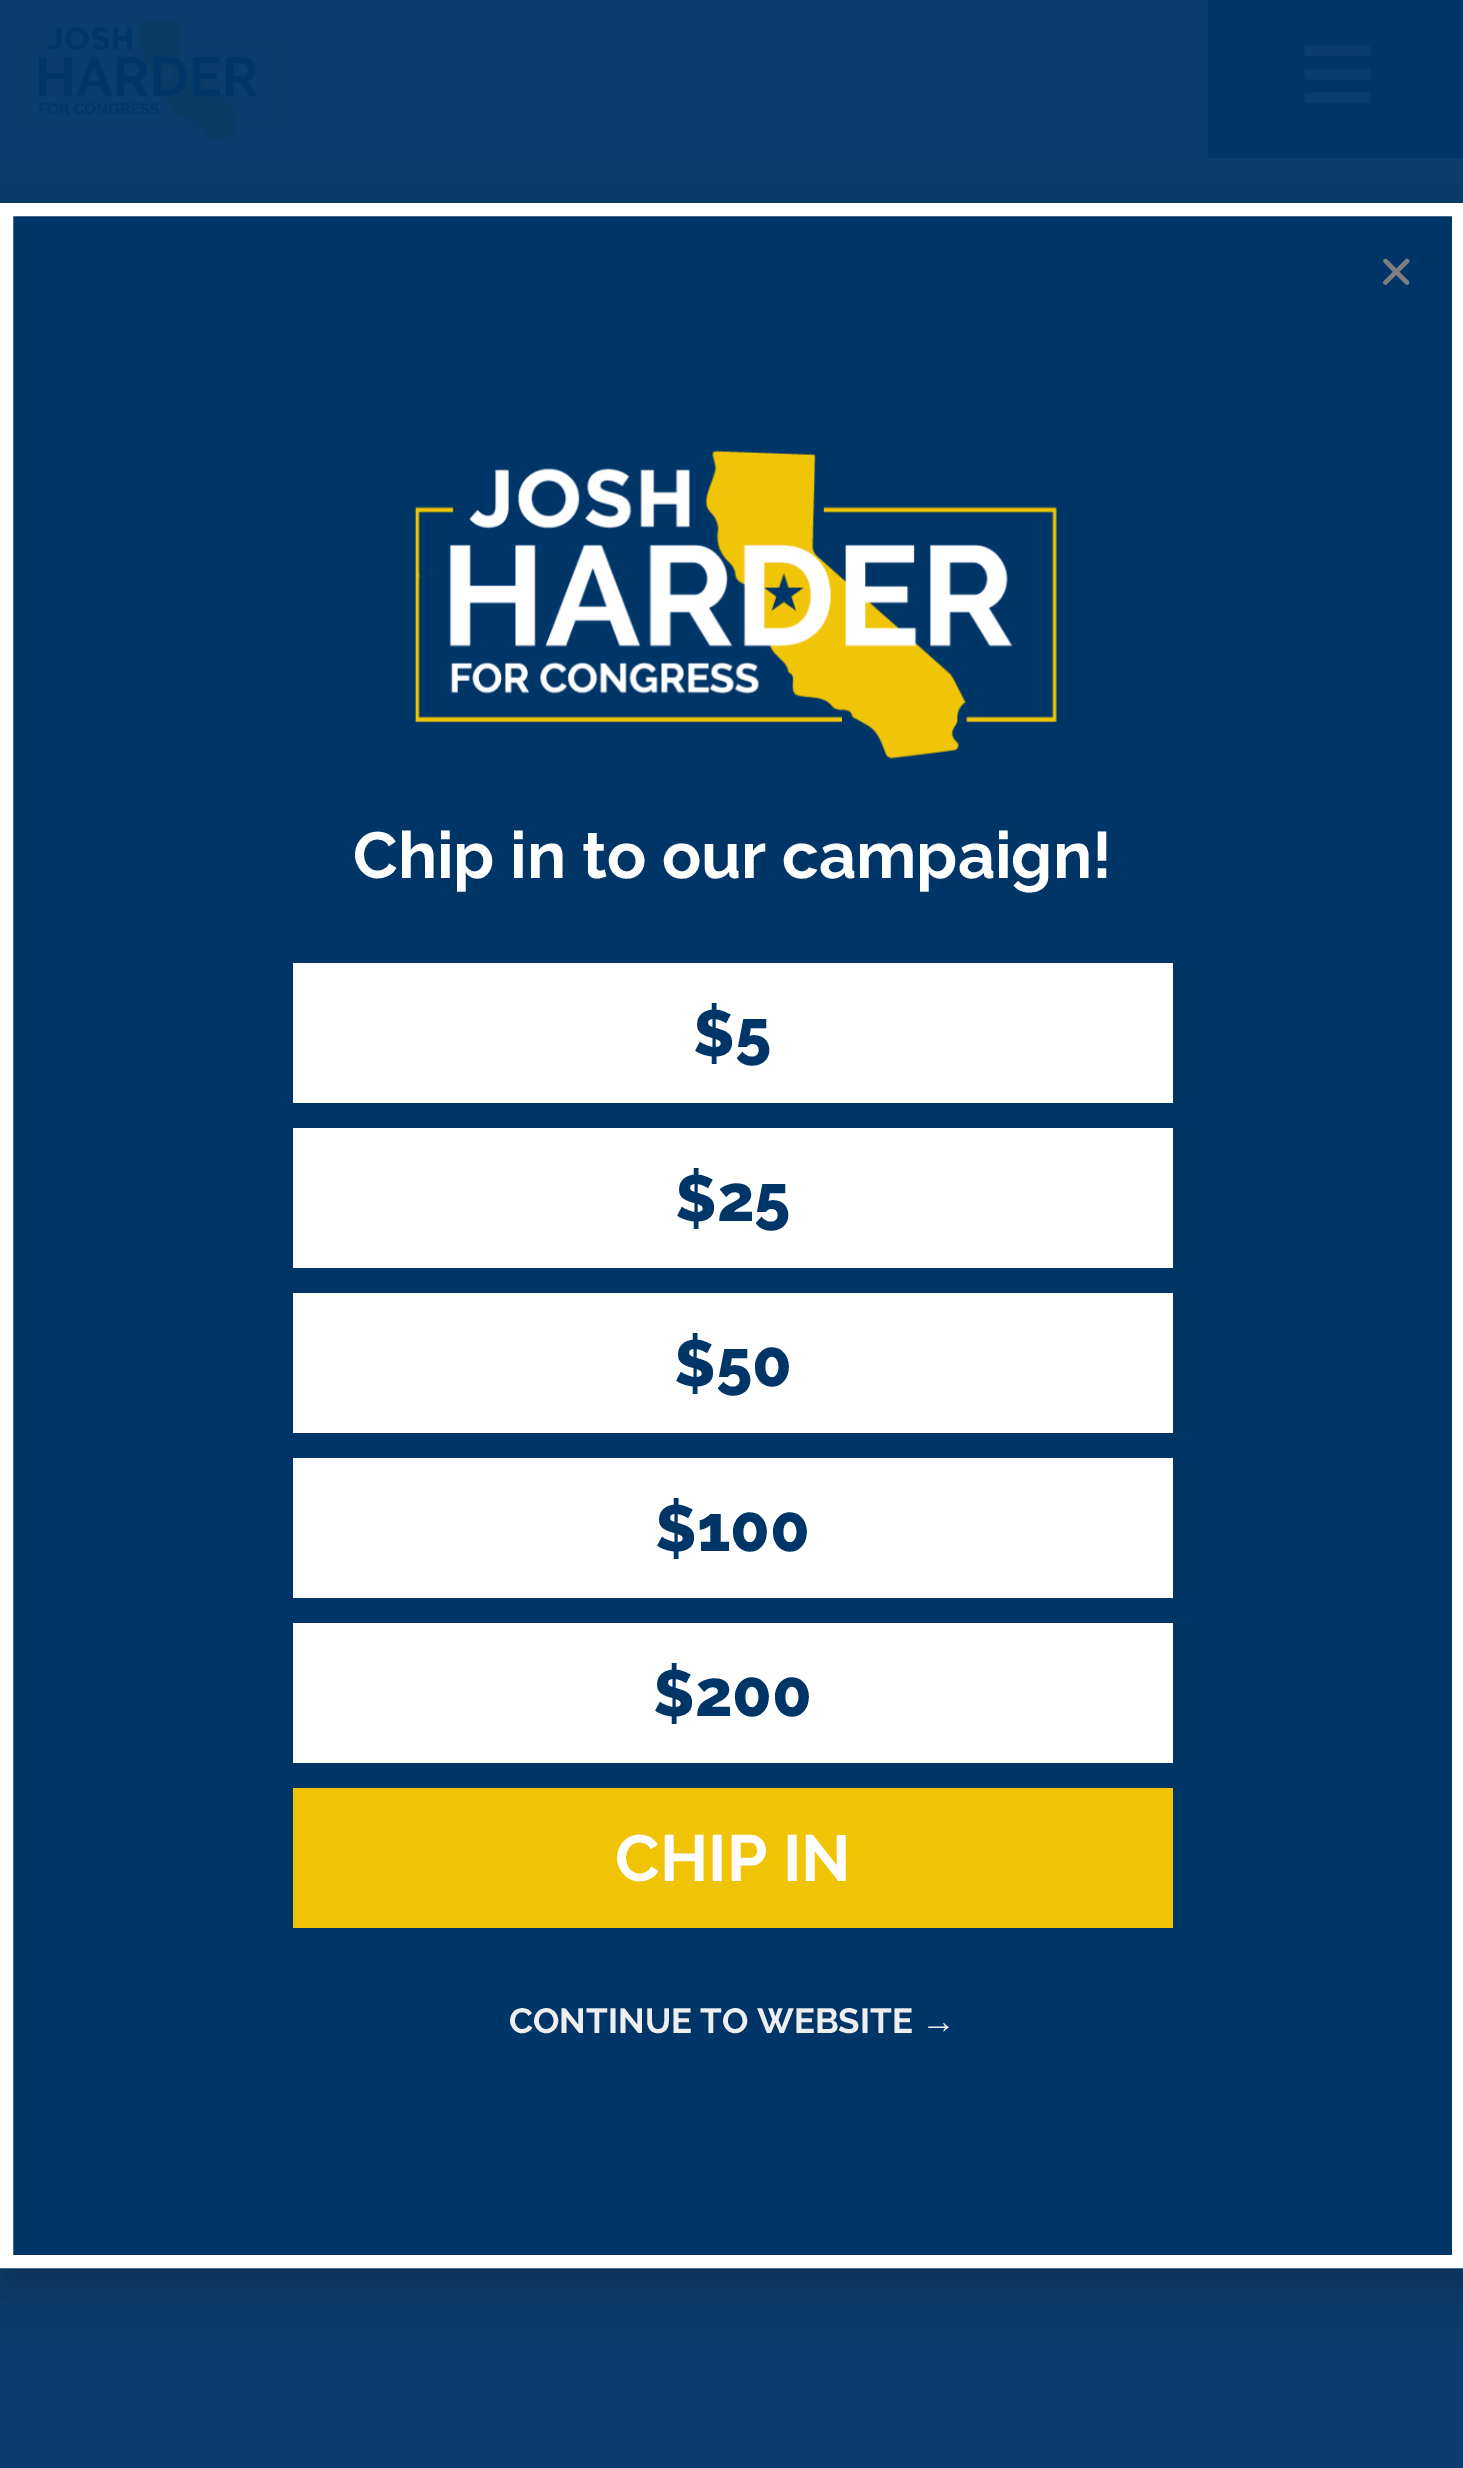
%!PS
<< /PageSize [1463 2468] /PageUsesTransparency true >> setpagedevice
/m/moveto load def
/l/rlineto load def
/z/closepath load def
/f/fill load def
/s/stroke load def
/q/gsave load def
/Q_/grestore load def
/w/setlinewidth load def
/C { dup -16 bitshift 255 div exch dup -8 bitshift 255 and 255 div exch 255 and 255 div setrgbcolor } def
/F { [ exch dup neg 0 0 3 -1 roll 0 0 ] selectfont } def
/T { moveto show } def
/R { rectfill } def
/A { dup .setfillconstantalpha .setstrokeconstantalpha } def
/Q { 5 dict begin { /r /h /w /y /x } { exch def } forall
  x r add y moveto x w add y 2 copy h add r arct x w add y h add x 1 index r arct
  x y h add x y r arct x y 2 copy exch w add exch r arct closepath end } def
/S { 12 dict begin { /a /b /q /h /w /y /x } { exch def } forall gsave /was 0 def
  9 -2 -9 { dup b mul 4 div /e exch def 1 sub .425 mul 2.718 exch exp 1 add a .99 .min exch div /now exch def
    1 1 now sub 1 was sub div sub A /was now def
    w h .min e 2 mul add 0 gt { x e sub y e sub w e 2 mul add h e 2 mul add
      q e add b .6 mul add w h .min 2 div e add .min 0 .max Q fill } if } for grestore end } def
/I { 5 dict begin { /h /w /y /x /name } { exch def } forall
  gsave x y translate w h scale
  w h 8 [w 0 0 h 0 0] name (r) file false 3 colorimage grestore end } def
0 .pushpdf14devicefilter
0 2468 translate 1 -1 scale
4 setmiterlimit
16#0A3D6E C
0 0 1463 2468 R
16#003568 C
1208 0 255 158 R
(1.rgb) 25 19 250 121 I
(2.rgb) 1304 45 67 59 I
16#000000 C
-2 215 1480 2080 0 29 .2 S
16#003568 C
6.5 209.5 m 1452 0 l 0 2052 l -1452 0 l z q f Q_
16#FFFFFF C
13 w
s
(3.rgb) 1383 258 27 27 I
(4.rgb) 414 450 643 309 I
/Raleway-Bold 65 F
(Chip in to our campaign!) 353 878 T
293 963 880 140 R
/Raleway-ExtraBold 65 F
16#003568 C
($5) 693 1056 T
16#FFFFFF C
293 1128 880 140 R
16#003568 C
($25) 675 1221 T
16#FFFFFF C
293 1293 880 140 R
16#003568 C
($50) 674 1386 T
16#FFFFFF C
293 1458 880 140 R
16#003568 C
($100) 655 1551 T
16#FFFFFF C
293 1623 880 140 R
16#003568 C
($200) 653 1716 T
16#F1C305 C
293 1788 880 140 R
/Raleway-Bold 65 F
16#FFFFFF C
(CHIP IN) 615 1881 T
/Raleway-Bold 35 F
16#EEEEEE C
(CONTINUE TO WEBSITE) 509 2033 T
/LiberationSans-Bold 35 F
(→) 921 2033 T
.poppdf14devicefilter showpage
